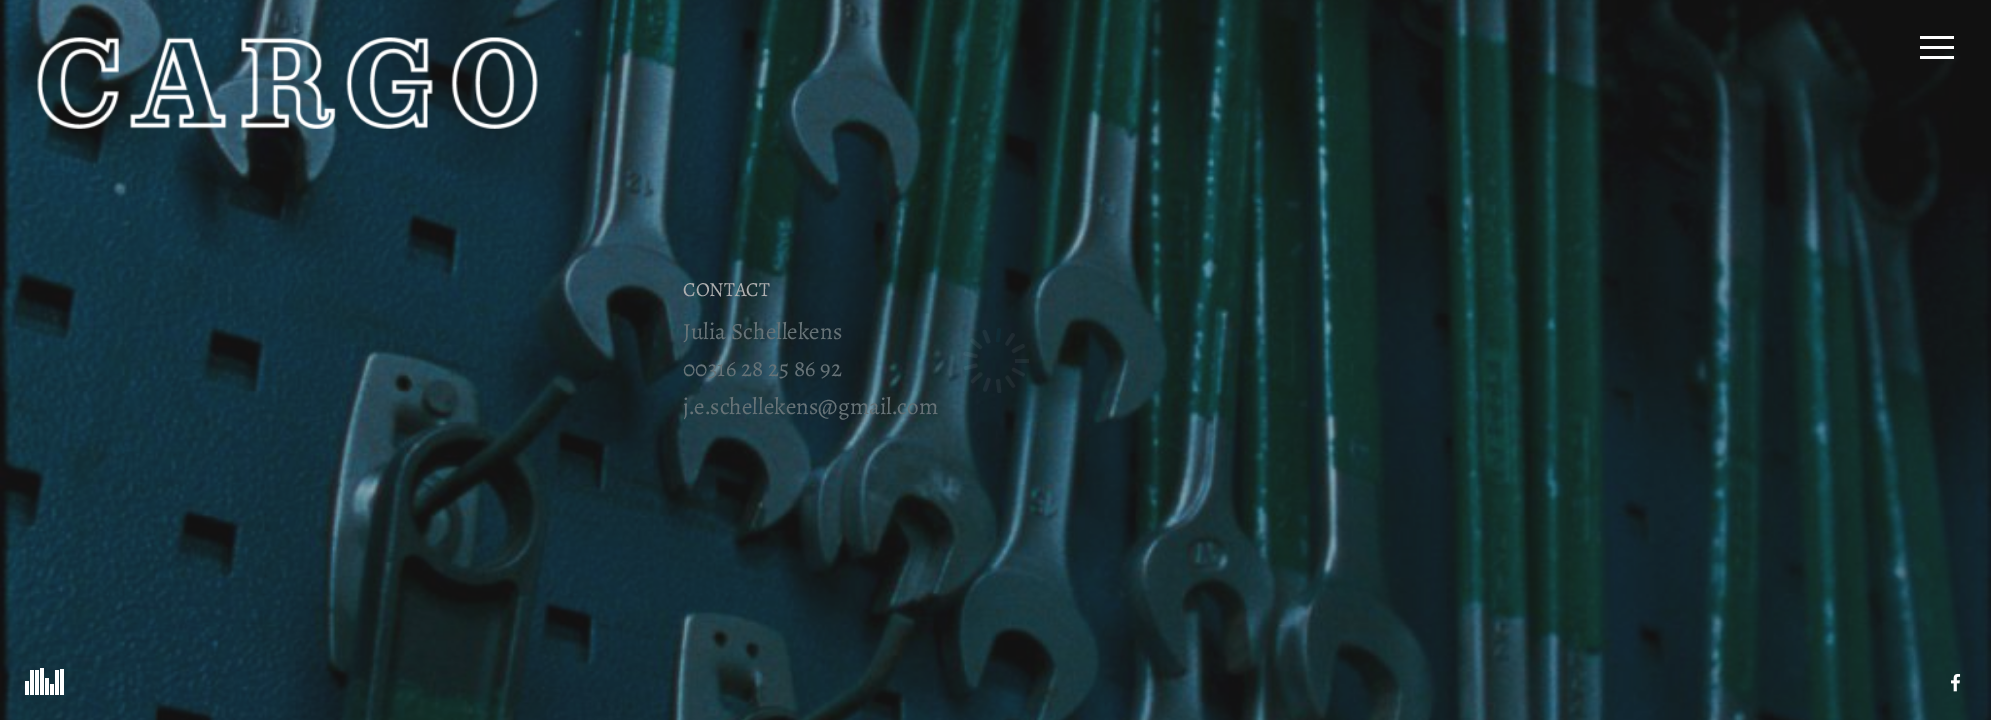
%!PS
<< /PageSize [1991 720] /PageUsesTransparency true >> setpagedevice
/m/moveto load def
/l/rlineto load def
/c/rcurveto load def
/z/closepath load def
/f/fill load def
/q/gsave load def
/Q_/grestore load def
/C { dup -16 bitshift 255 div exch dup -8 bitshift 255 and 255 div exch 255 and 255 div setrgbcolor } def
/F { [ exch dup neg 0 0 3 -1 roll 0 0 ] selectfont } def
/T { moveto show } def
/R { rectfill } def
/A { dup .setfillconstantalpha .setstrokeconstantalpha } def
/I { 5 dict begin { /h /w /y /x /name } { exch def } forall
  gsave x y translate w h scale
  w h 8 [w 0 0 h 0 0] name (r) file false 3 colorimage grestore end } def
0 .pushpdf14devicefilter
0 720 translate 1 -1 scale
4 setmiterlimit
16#FFFFFF C
0 0 1991 720 R
(2.rgb) 0 0 1991 720 I
(1.rgb) 37 37 501 92 I
1920 46 34 3 R
1920 36 34 3 R
1920 56 34 3 R
/Sahitya-Regular 20 F
16#B0B0B0 C
(CONTACT) 683 296 T
/Sahitya-Regular 23.25 F
16#677377 C
(Julia Schellekens) 683 339 T
(00316 28 25 86 92) 683 376 T
q
684 279 625 164 rectclip
(j.e.schellekens@gmail.com) 683 414 T
Q_
0.06 A
16#FFFFFF C
1015 359 14 4 R
1014.5 368 m 8 4.5 l 2 1 3.5 1.5 1.5 3.5 c 0 .5 -.5 .5 -1 .5 c -10.5 -5.5 l -1.5 -1 0 -4 2 -3 c z f
1008.5 376 m 6.5 9.5 l .5 .5 .5 1 0 1 c -2 2.5 -3 1 -4 -.5 c -5.5 -8 l -.5 -1.5 2 -3.5 3 -2 c z 1000 380 m 1 9.5 l .5 2.5 .5 3.5 -2.5 3.5 c -.5 0 -.5 -.5 -1 -1 c -1.5 -11.5 l .5 -1.5 3.5 -2 4 -.5 c z 990.5 380 m -3 9 l -1 2 -1.5 3.5 -4 2 c 0 -.5 -.5 -1 -.5 -1.5 c 4 -11 l 1 -1.5 4 0 3.5 1.5 c z 982 375.5 m -8.5 7.5 l -.5 .5 -1 .5 -1.5 0 c -2.5 -1.5 -1 -2.5 .5 -4 c 7 -6.5 l 1.5 -1 4 1.5 2.5 3 c z 976.5 367.5 m -11 2.5 l -.5 0 -1 0 -1 -.5 c -1.5 -3 0 -3 2 -3.5 c 9.5 -2.5 l 1.5 0 2.5 3.5 .5 4 c z 975.5 358 m -9 -2 l -2 -.5 -3.5 -1 -2.5 -3.5 c .5 -.5 1 -1 1.5 -1 c 11.5 3 l 1.5 .5 .5 4 -1.5 3.5 c z 979.5 349 m -7.5 -6 l -1.5 -1.5 -2.5 -2.5 -.5 -4.5 c .5 0 1 0 1.5 0 c 9 8 l 1 1 -1.5 3.5 -2.5 2.5 c z f
986.5 342.5 m -4 -10.5 l 0 -.5 .5 -1 .5 -1.5 c 2.5 -1.5 3 0 4 2 c 3.5 9 l 0 1.5 -3 3 -4 1 c z f
1 A
16#102B35 C
996 340.5 m 1 -9.5 l 0 -2 0 -3.5 3 -2.5 c .5 0 .5 .5 1 1 c -1.5 11.5 l -.5 2 -4 1.5 -3.5 -.5 c z f
0.06 A
16#FFFFFF C
1005.5 343 m 6 -9.5 l .5 -.5 1 -.5 1.5 -.5 c 3 1.5 2 2.5 .5 4.5 c -5.5 8 l -1 1 -3.5 -1 -2.5 -2.5 c z f
1012.5 349.5 m 10 -5.5 l .5 0 1 0 1.5 .5 c 1.5 2.5 .5 3 -1.5 4 c -8.5 4.5 l -1.5 .5 -3 -2.5 -1.5 -3.5 c z f
1 A
25 681 4 14 R
30 670 4 25 R
35 670 4 25 R
40 668 4 27 R
45 678 4 17 R
50 684 4 11 R
55 670 4 25 R
60 669 4 26 R
(3.rgb) 1951 673 10 19 I
.poppdf14devicefilter showpage
